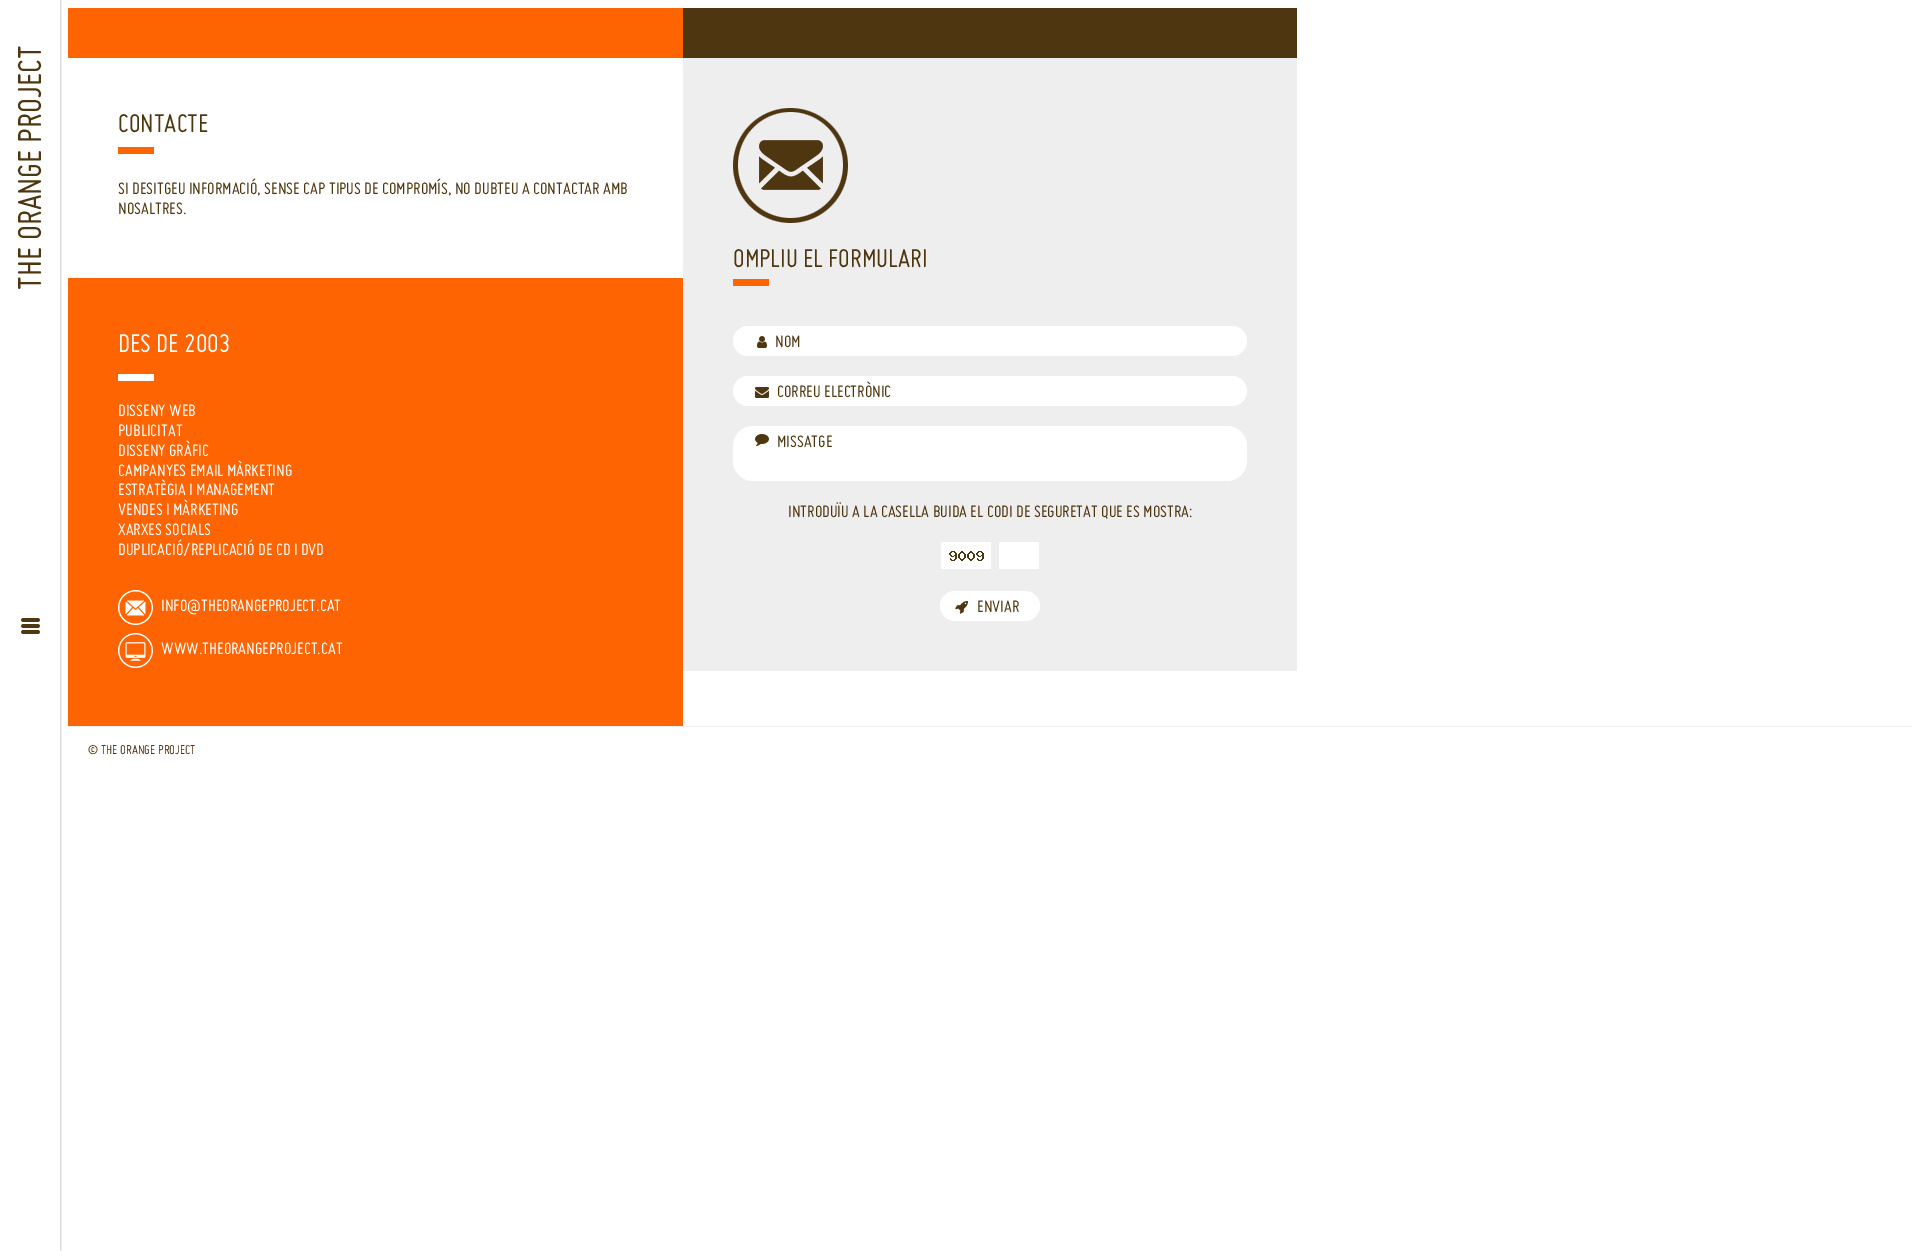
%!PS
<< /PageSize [1920 1251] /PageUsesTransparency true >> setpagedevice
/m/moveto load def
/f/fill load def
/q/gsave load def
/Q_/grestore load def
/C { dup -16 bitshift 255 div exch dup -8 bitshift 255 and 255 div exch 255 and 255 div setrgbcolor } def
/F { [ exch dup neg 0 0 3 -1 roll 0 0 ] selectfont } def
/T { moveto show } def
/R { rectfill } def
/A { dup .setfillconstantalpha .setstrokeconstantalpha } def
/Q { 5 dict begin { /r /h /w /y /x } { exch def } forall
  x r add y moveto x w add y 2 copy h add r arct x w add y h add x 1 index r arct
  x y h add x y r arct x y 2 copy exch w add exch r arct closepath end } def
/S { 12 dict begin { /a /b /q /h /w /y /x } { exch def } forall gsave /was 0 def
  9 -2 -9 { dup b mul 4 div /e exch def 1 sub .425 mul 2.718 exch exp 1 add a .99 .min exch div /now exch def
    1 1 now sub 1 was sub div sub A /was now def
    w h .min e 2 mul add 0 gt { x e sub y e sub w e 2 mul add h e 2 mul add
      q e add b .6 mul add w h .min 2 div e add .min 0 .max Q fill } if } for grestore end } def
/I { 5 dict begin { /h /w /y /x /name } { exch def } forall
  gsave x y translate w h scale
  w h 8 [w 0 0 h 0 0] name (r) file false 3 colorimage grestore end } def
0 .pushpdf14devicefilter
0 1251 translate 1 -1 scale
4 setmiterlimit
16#FFFFFF C
0 0 1920 1251 R
q
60 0 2 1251 rectclip
16#000000 C
1 0 60 1251 0 1 .2 S
Q_
(1.rgb) 21 618 19 16 I
/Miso-Italic 36 F
16#4E3611 C
q 41 290 translate -90 rotate 0 0 m (THE ORANGE PROJECT) show Q_
16#FF6402 C
68 8 615 50 R
/Miso-Italic 28 F
16#4E3611 C
(CONTACTE) 118 132 T
16#FF6402 C
118 147 36 7 R
/Miso-Italic 18 F
16#4E3611 C
(SI DESITGEU INFORMACIÓ, SENSE CAP TIPUS DE COMPROMÍS, NO DUBTEU A CONTACTAR AMB) 118 194 T
(NOSALTRES.) 118 214 T
16#FF6402 C
68 278 615 448 R
/Miso-Italic 28 F
16#FFFFFF C
(DES DE 2003) 118 352 T
118 374 36 7 R
/Miso-Italic 18 F
(DISSENY WEB) 118 416 T
(PUBLICITAT) 118 436 T
(DISSENY GRÀFIC) 118 456 T
(CAMPANYES EMAIL MÀRKETING) 118 476 T
(ESTRATÈGIA I MANAGEMENT) 118 495 T
(VENDES I MÀRKETING) 118 515 T
(XARXES SOCIALS) 118 535 T
(DUPLICACIÓ/REPLICACIÓ DE CD I DVD) 118 555 T
(2.rgb) 118 590 35 35 I
(INFO@THEORANGEPROJECT.CAT) 161 611 T
(3.rgb) 118 633 35 35 I
(WWW.THEORANGEPROJECT.CAT) 161 654 T
16#EEEEEE C
683 58 614 613 R
16#4E3611 C
683 8 614 50 R
(4.rgb) 733 108 115 115 I
/Miso-Italic 28 F
(OMPLIU EL FORMULARI) 733 267 T
16#FF6402 C
733 279 36 7 R
16#FFFFFF C
733 326 514 30 15 Q f
(5.rgb) 757 336 10 12 I
/Miso-Italic 18 F
16#4E3611 C
(NOM) 775 347 T
16#FFFFFF C
733 376 514 30 15 Q f
(6.rgb) 755 387 14 11 I
16#4E3611 C
(CORREU ELECTRÒNIC) 777 397 T
16#FFFFFF C
733 426 514 55 20 Q f
(7.rgb) 755 434 14 12 I
16#4E3611 C
(MISSATGE) 777 447 T
(INTRODUÏU A LA CASELLA BUIDA EL CODI DE SEGURETAT QUE ES MOSTRA:) 788 517 T
(8.rgb) 941 542 50 27 I
16#FFFFFF C
999 542 40 27 R
940 591 100 30 15 Q f
(9.rgb) 955 601 13 13 I
16#4E3611 C
(ENVIAR) 977 612 T
16#EFEFEF C
68 726 1844 1 R
/Miso-Italic 14 F
16#4E3611 C
(© THE ORANGE PROJECT) 88 754 T
.poppdf14devicefilter showpage
